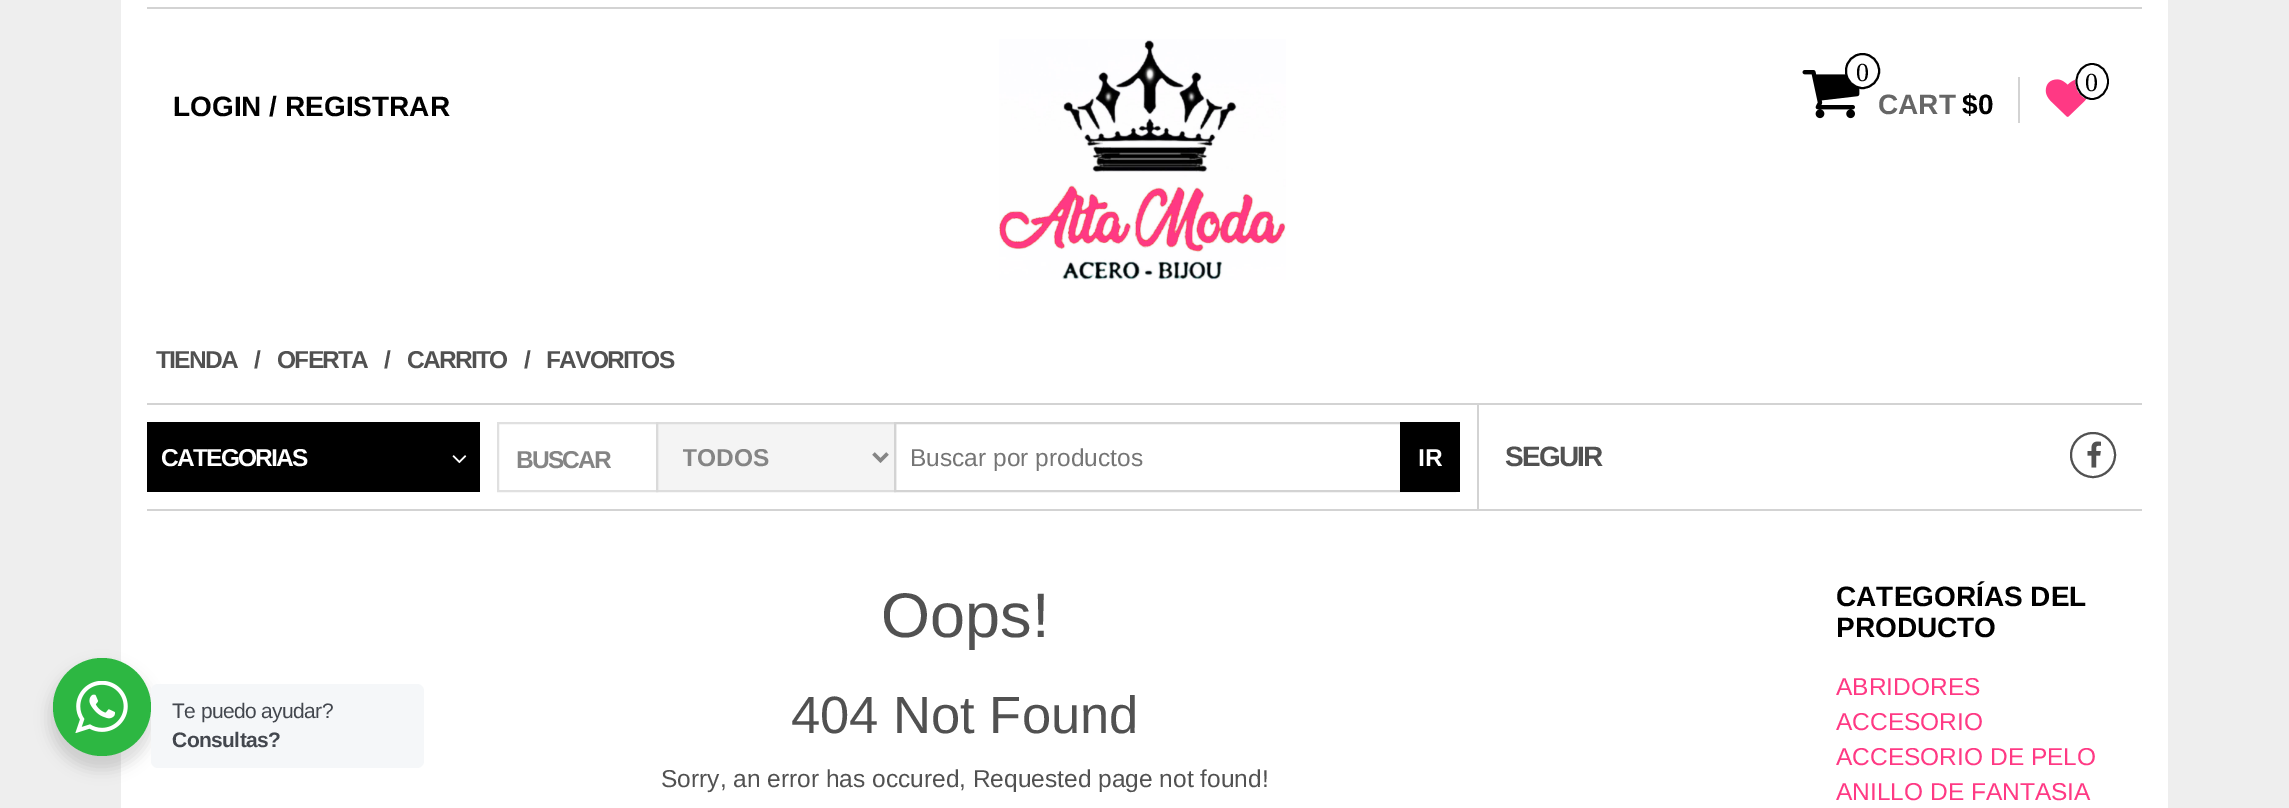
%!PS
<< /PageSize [2289 808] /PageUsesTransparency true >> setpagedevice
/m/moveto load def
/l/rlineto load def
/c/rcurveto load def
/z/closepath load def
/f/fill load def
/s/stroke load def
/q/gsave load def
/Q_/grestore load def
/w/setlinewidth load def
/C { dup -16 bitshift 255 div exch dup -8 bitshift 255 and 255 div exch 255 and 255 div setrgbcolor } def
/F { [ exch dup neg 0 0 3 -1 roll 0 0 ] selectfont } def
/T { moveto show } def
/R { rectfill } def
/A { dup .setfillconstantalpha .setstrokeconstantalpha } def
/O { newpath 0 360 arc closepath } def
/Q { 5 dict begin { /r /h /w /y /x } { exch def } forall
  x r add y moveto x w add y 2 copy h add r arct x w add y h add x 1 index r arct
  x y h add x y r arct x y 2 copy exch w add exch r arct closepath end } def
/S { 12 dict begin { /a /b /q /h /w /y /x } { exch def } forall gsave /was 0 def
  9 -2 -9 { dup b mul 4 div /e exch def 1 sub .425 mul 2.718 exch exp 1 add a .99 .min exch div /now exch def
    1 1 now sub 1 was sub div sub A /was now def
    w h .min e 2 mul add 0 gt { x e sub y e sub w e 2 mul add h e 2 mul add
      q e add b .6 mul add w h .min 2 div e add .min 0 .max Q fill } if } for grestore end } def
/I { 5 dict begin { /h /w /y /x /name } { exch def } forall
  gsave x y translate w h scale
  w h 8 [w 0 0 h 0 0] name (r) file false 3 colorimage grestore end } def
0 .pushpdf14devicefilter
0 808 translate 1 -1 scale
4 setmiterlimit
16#EEEEEE C
0 0 2289 808 R
16#FFFFFF C
121 0 2047 808 R
16#D3D3D3 C
147 7 1995 2 R
/LiberationSans-Bold 28 F
16#000000 C
(LOGIN / REGISTRAR) 173 116 T
(1.rgb) 999 39 287 241 I
(2.rgb) 1802 70 58 49 I
16#FFFFFF C
1846 54 33 34 16.5 Q q f Q_
16#000000 C
2 w
s
/LiberationSerif-Regular 26 F
(0) 1856 81 T
/LiberationSans-Bold 28 F
16#666666 C
(CART) 1878 114 T
16#000000 C
($0) 1962 114 T
16#D3D3D3 C
2018 77 2 46 R
(3.rgb) 2045 79 42 38 I
16#FFFFFF C
2092 63 m 9 0 16.5 8.5 16.5 18.5 c 0 10 -7.5 18.5 -16.5 18.5 c -9 0 -16.5 -8.5 -16.5 -18.5 c 0 -10 7.5 -18.5 16.5 -18.5 c z f
16#000000 C
1.8 w
2092 64 m 9 0 16 7.5 16 17.5 c 0 9.5 -7 17.5 -16 17.5 c -8.5 0 -15.5 -8 -15.5 -17.5 c 0 -10 7 -17.5 15.5 -17.5 c z s
/LiberationSerif-Regular 26 F
(0) 2085 91 T
16#D3D3D3 C
147 403 1995 2 R
/LiberationSans-Bold 24.5 F
16#515151 C
156 368 m -1.75 0 (TIENDA) ashow
254 368 m -1.75 0 (/) ashow
277 368 m -1.75 0 (OFERTA) ashow
384 368 m -1.75 0 (/) ashow
407 368 m -1.75 0 (CARRITO) ashow
524 368 m -1.75 0 (/) ashow
546 368 m -1.75 0 (FAVORITOS) ashow
16#D3D3D3 C
147 509 1995 2 R
16#000000 C
147 422 333 70 R
16#FFFFFF C
161 466 m -1.75 0 (CATEGORIAS) ashow
(4.rgb) 452 455 15 9 I
16#E0E0E0 C
2 w
498 423 159 68 rectstroke
16#858585 C
516 468 m -1.75 0 (BUSCAR) ashow
0.7 A
16#EFEFEF C
656 422 238 70 R
16#D3D3D3 C
657 423 238 68 rectstroke
1 A
16#858585 C
3.5 w
873.5 453.5 m 7 7 l 7 -7 l s
q
683 441 166 32 rectclip
(TODOS) 682 466 T
Q_
16#D3D3D3 C
2 w
895 423 560 68 rectstroke
q
910 443 530 28 rectclip
/LiberationSans-Regular 24.5 F
16#757575 C
(Buscar por productos) 910 466 T
Q_
16#000000 C
1400 422 60 70 R
16#FFFFFF C
(IR) 1418 466 T
16#D3D3D3 C
1477 404 2 105 R
/LiberationSans-Bold 28 F
16#515151 C
1505 466 m -1.75 0 (SEGUIR) ashow
2093 455 22 O s
(5.rgb) 2087 441 14 27 I
/LiberationSans-Regular 63 F
(Oops!) 881 637 T
/LiberationSans-Regular 52.5 F
(404 Not Found) 791 733 T
/LiberationSans-Regular 24.5 F
(Sorry, an error has occured, Requested page not found!) 661 787 T
/LiberationSans-Bold 28 F
16#000000 C
(CATEGORÍAS DEL) 1836 606 T
(PRODUCTO) 1836 637 T
/LiberationSans-Regular 24.5 F
16#FF3984 C
(ABRIDORES) 1836 695 T
(ACCESORIO) 1836 730 T
(ACCESORIO DE PELO) 1836 765 T
(ANILLO DE FANTASIA) 1836 800 T
16#000000 C
49 665 105 105 52.5 7 .14 S
16#2DB742 C
102 707 49 O f
(6.rgb) 75 681 53 52 I
16#F5F7F9 C
151 684 273 84 7 Q f
/LiberationSans-Regular 21 F
16#43474E C
172 718 m -.6 0 (Te puedo ayudar?) ashow
/LiberationSans-Bold 21 F
172 747 m -.6 0 (Consultas?) ashow
.poppdf14devicefilter showpage
